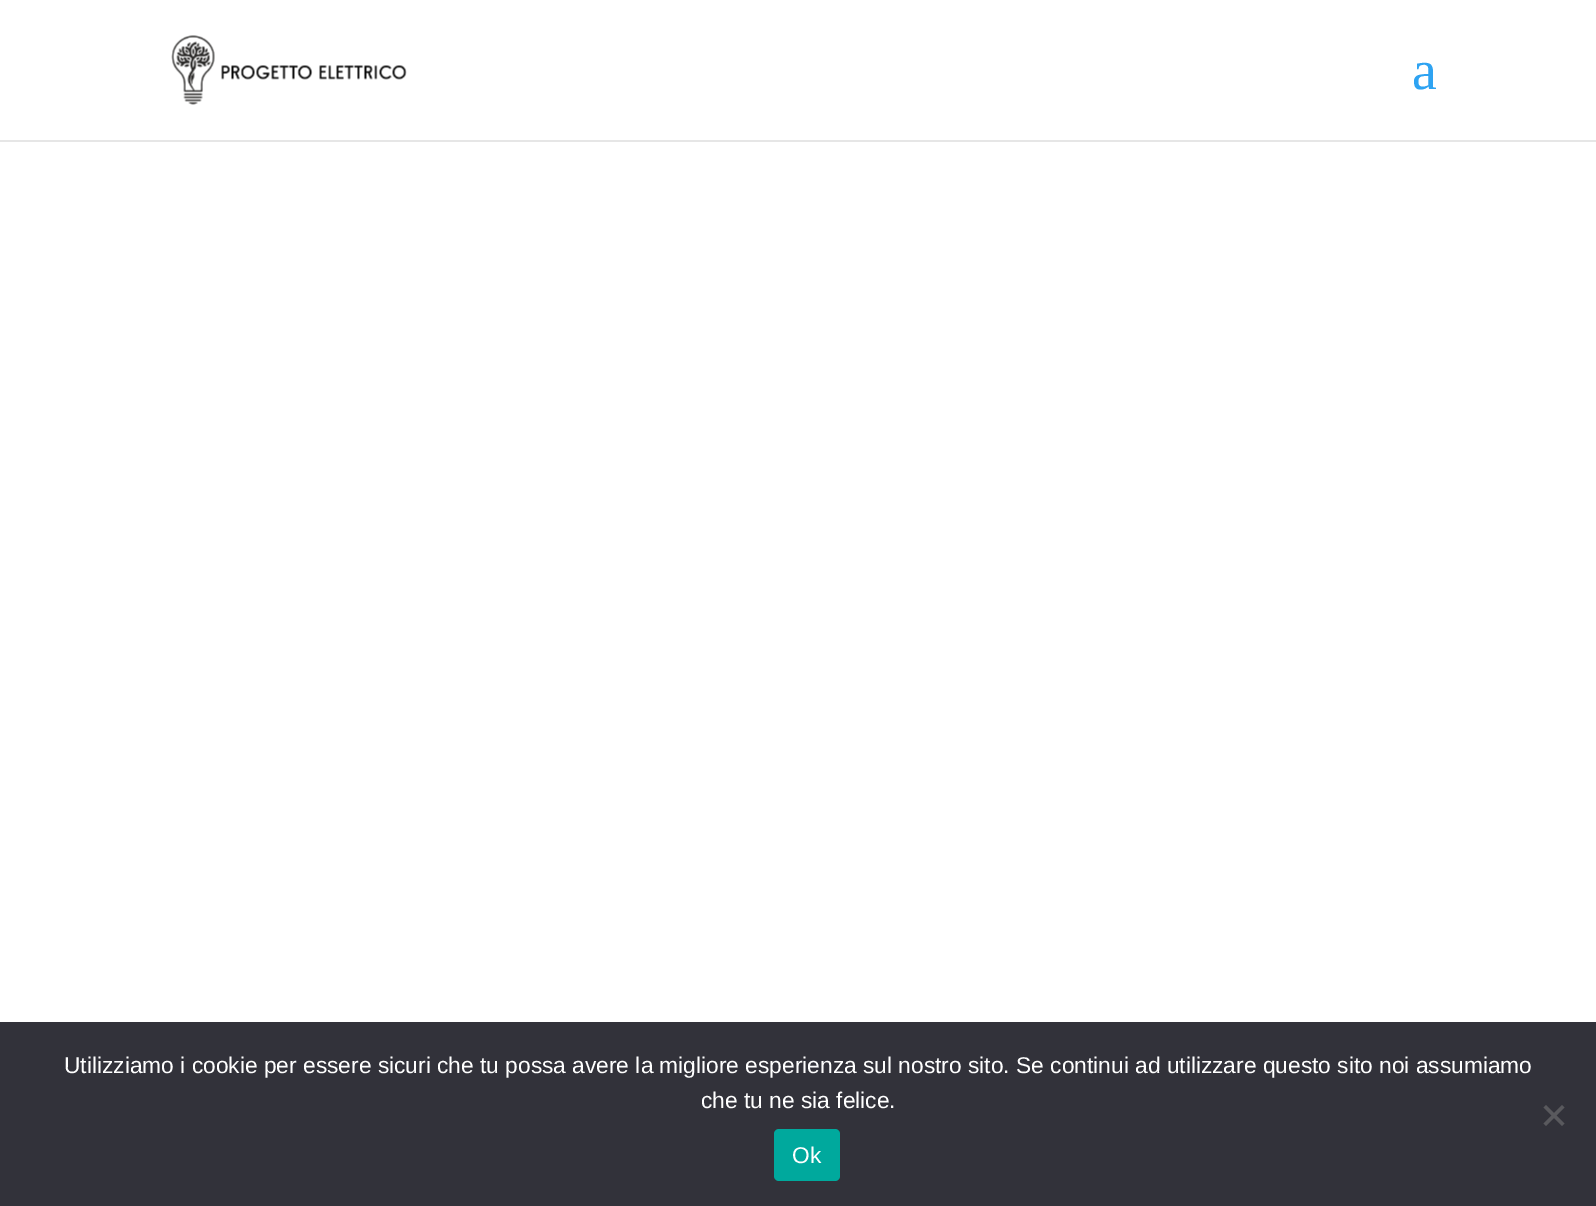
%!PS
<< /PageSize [1596 1206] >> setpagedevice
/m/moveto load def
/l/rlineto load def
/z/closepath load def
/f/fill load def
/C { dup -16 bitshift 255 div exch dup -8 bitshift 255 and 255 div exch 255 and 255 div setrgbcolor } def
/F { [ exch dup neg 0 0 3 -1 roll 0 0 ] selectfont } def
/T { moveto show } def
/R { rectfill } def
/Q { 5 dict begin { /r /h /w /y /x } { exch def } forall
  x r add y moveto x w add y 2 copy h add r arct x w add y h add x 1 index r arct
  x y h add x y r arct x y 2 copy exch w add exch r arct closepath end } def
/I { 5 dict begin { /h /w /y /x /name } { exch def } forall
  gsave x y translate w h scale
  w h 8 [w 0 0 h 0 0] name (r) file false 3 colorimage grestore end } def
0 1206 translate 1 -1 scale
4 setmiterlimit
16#FFFFFF C
0 0 1596 1206 R
16#E6E6E6 C
0 140 1596 2 R
(1.rgb) 171 35 236 70 I
/LiberationSerif-Regular 56 F
16#2EA3F2 C
(a) 1412 89 T
16#32323A C
0 1022 1596 184 R
/LiberationSans-Regular 22.75 F
16#FFFFFF C
(Utilizziamo i cookie per essere sicuri che tu possa avere la migliore esperienza sul nostro sito. Se continui ad utilizzare questo sito noi assumiamo) 64 1073 T
(che tu ne sia felice.) 701 1108 T
16#59595D C
1562 1105 m 2.5 2.5 l -18.5 18.5 l -2.5 -2.5 l z f
1543.5 1107.5 m 2.5 -2.5 l 18.5 18.5 l -2.5 2.5 l z f
16#00A99D C
774 1129 66 52 5 Q f
16#FFFFFF C
(Ok) 792 1163 T
showpage
